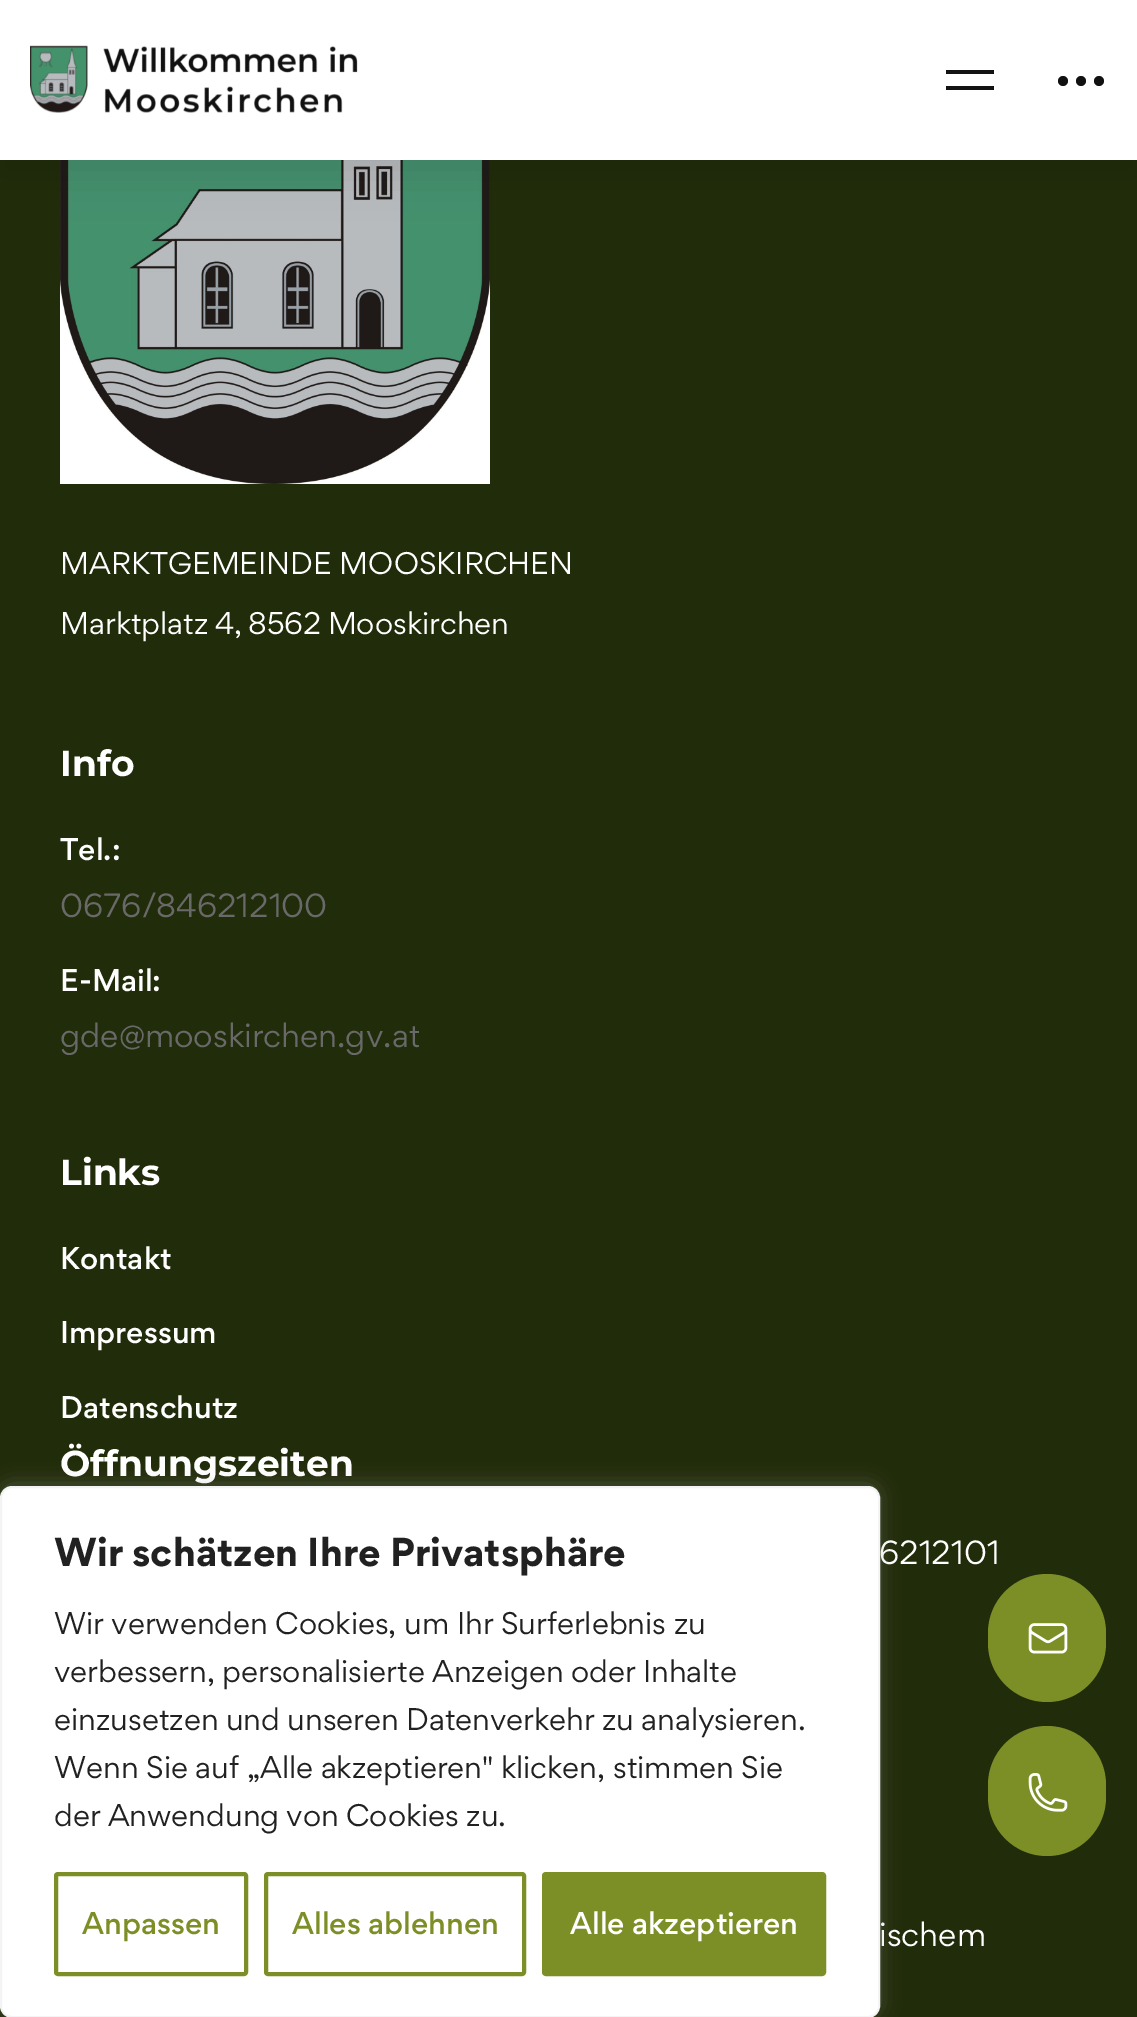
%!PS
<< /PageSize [1137 2017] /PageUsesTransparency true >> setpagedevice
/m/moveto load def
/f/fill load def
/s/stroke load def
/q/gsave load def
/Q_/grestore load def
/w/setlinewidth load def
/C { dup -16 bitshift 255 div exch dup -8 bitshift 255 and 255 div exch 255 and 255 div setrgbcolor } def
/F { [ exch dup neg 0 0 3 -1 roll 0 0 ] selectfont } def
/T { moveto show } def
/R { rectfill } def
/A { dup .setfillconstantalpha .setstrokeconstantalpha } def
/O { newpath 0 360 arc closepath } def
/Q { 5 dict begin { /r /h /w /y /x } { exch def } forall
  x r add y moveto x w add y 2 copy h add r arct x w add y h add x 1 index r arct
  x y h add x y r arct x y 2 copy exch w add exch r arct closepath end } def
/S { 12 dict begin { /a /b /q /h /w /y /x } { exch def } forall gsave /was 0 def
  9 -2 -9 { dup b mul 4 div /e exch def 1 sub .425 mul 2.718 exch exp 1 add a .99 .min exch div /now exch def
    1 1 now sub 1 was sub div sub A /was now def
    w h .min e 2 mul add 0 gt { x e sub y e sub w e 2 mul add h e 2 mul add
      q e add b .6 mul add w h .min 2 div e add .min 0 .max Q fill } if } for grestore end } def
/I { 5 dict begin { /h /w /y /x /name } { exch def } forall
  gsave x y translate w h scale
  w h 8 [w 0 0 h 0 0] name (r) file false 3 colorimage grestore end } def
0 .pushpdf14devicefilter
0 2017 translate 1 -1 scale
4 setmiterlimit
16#212C0A C
0 0 1137 2017 R
(2.rgb) 60 160 430 324 I
16#000000 C
0 16 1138 160 0 20 .1 S
16#FFFFFF C
0 0 1137 160 R
(1.rgb) 30 45 328 68 I
16#131313 C
946 70 48 4 R
946 86 48 4 R
16#111111 C
1063 81 5 O f
1081 81 5 O f
1099 81 5 O f
/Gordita-Regular 28 F
16#FFFFFF C
(MARKTGEMEINDE MOOSKIRCHEN) 60 574 T
60 634 m -1.5 0 32 (Marktplatz 4, 8562 Mooskirchen) widthshow
/Montserrat-Bold 36 F
(Info) 60 776 T
/Gordita-Medium 28 F
(Tel.:) 60 860 T
/Gordita-Regular 30 F
16#696969 C
(0676/846212100) 60 917 T
/Gordita-Medium 28 F
16#FFFFFF C
(E-Mail:) 60 991 T
/Gordita-Regular 30 F
16#696969 C
(gde@mooskirchen.gv.at) 60 1047 T
/Montserrat-Bold 36 F
16#FFFFFF C
(Links) 60 1185 T
/Gordita-Medium 28 F
(Kontakt) 60 1269 T
(Impressum) 60 1343 T
(Datenschutz) 60 1418 T
/Montserrat-Bold 36 F
(Öffnungszeiten) 60 1476 T
/Gordita-Regular 30 F
879 1564 m -2 0 32 (6212101) widthshow
(ischem) 879 1946 T
16#ACABAB C
0 1484 880 532 12 10 .3 S
16#FFFFFF C
1 1487 878 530 11 Q q f Q_
16#F4F4F4 C
2 w
s
/Gordita-Bold 36 F
16#212121 C
(Wir schätzen Ihre Privatsphäre) 54 1566 T
/Gordita-Regular 28 F
54 1634 m -.25 0 32 (Wir verwenden Cookies, um Ihr Surferlebnis zu) widthshow
54 1682 m -.5 0 32 (verbessern, personalisierte Anzeigen oder Inhalte) widthshow
54 1730 m -.5 0 32 (einzusetzen und unseren Datenverkehr zu analysieren.) widthshow
54 1778 m -.25 0 32 (Wenn Sie auf „Alle akzeptieren" klicken, stimmen Sie) widthshow
54 1826 m -.5 0 32 (der Anwendung von Cookies zu.) widthshow
16#7C8F26 C
4 w
56 1874 190 100 2 Q s
/Gordita-Medium 28 F
(Anpassen) 82 1934 T
266 1874 258 100 2 Q s
(Alles ablehnen) 292 1934 T
544 1874 280 100 2 Q q f Q_
s
16#FFFFFF C
(Alle akzeptieren) 570 1934 T
16#7C8F26 C
988 1574 118 128 59 Q f
(3.rgb) 1028 1623 40 31 I
988 1726 118 130 59 Q f
(4.rgb) 1028 1773 40 39 I
.poppdf14devicefilter showpage
